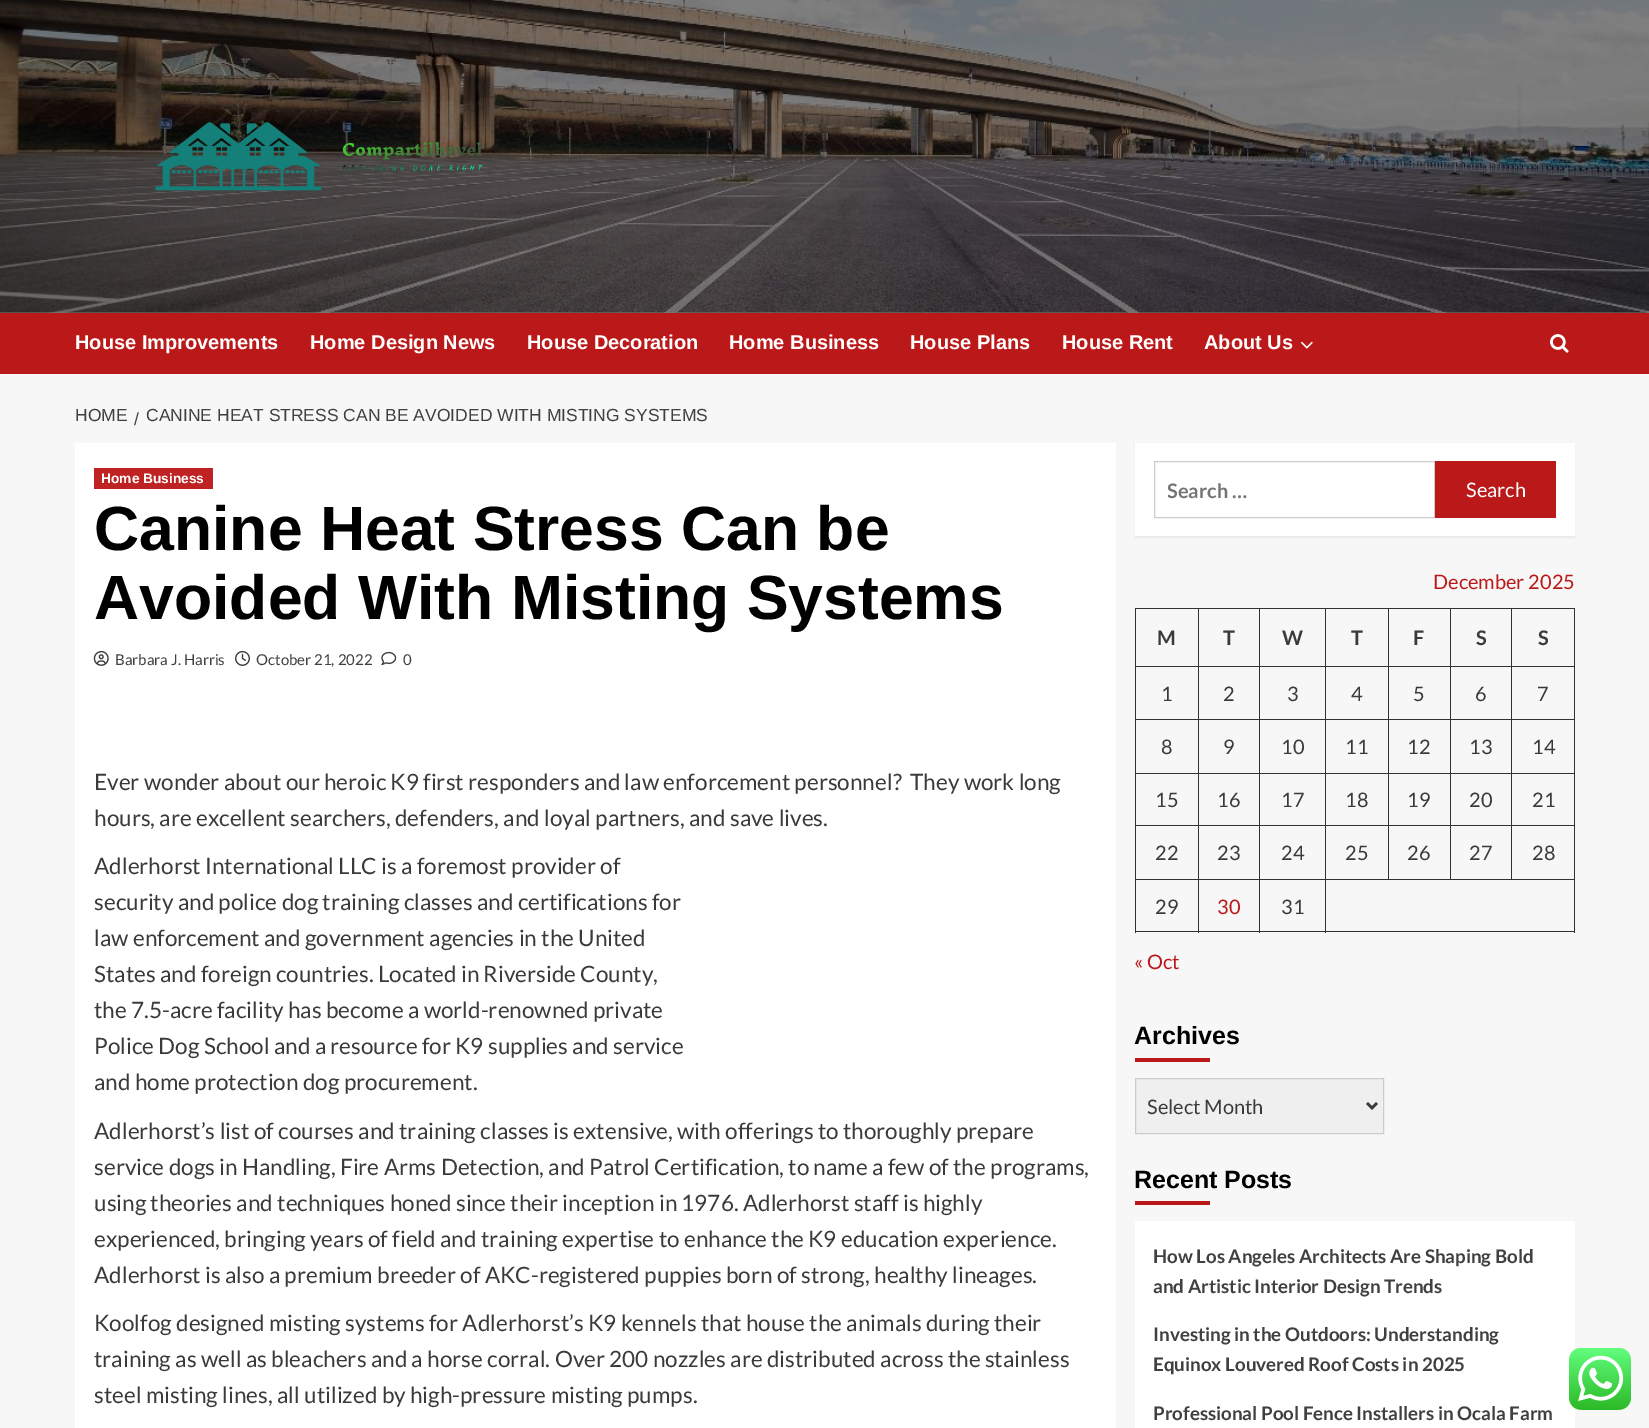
%!PS
<< /PageSize [1649 1428] /PageUsesTransparency true >> setpagedevice
/m/moveto load def
/l/rlineto load def
/z/closepath load def
/f/fill load def
/s/stroke load def
/q/gsave load def
/Q_/grestore load def
/w/setlinewidth load def
/C { dup -16 bitshift 255 div exch dup -8 bitshift 255 and 255 div exch 255 and 255 div setrgbcolor } def
/F { [ exch dup neg 0 0 3 -1 roll 0 0 ] selectfont } def
/T { moveto show } def
/R { rectfill } def
/A { dup .setfillconstantalpha .setstrokeconstantalpha } def
/Q { 5 dict begin { /r /h /w /y /x } { exch def } forall
  x r add y moveto x w add y 2 copy h add r arct x w add y h add x 1 index r arct
  x y h add x y r arct x y 2 copy exch w add exch r arct closepath end } def
/S { 12 dict begin { /a /b /q /h /w /y /x } { exch def } forall gsave /was 0 def
  9 -2 -9 { dup b mul 4 div /e exch def 1 sub .425 mul 2.718 exch exp 1 add a .99 .min exch div /now exch def
    1 1 now sub 1 was sub div sub A /was now def
    w h .min e 2 mul add 0 gt { x e sub y e sub w e 2 mul add h e 2 mul add
      q e add b .6 mul add w h .min 2 div e add .min 0 .max Q fill } if } for grestore end } def
/I { 5 dict begin { /h /w /y /x /name } { exch def } forall
  gsave x y translate w h scale
  w h 8 [w 0 0 h 0 0] name (r) file false 3 colorimage grestore end } def
0 .pushpdf14devicefilter
0 1428 translate 1 -1 scale
4 setmiterlimit
16#F7F7F7 C
0 0 1649 1428 R
16#7C7C7C C
0 312 1649 1 R
(1.rgb) 0 0 1649 313 I
(2.rgb) 155 122 328 69 I
16#BB1919 C
0 313 1649 61 R
/LiberationSans-Bold 20 F
16#FFFFFF C
(House Improvements) 75 349 T
(Home Design News) 310 349 T
(House Decoration) 527 349 T
(Home Business) 729 349 T
(House Plans) 910 349 T
(House Rent) 1062 349 T
(About Us) 1204 349 T
(3.rgb) 1300 341 13 8 I
(4.rgb) 1550 334 19 19 I
/LiberationSans-Regular 17.5 F
16#404040 C
(HOME) 75 421 T
(/) 134 425 T
(CANINE HEAT STRESS CAN BE AVOIDED WITH MISTING SYSTEMS) 146 421 T
16#FFFFFF C
75 443 1041 985 R
16#BE2222 C
94 468 119 21 R
/LiberationSans-Bold 13.75 F
16#FFFFFF C
(Home Business) 101 483 T
/LiberationSans-Bold 62.5 F
16#000000 C
(Canine Heat Stress Can be) 94 550 T
(Avoided With Misting Systems) 94 619 T
(5.rgb) 93 650 16 16 I
/Lato-Regular 15 F
16#404040 C
(Barbara J. Harris) 115 665 T
(6.rgb) 235 650 15 16 I
(October 21, 2022) 256 665 T
(7.rgb) 381 651 16 14 I
(0) 403 665 T
/Lato-Regular 22.5 F
16#3A3A3A C
(Ever wonder about our heroic K9 first responders and law enforcement personnel?  They work long) 94 790 T
(hours, are excellent searchers, defenders, and loyal partners, and save lives.) 94 826 T
(Adlerhorst International LLC is a foremost provider of) 94 874 T
(security and police dog training classes and certifications for) 94 910 T
(law enforcement and government agencies in the United) 94 946 T
(States and foreign countries. Located in Riverside County,) 94 982 T
(the 7.5-acre facility has become a world-renowned private) 94 1018 T
(Police Dog School and a resource for K9 supplies and service) 94 1054 T
(and home protection dog procurement.) 94 1090 T
(Adlerhorst’s list of courses and training classes is extensive, with offerings to thoroughly prepare) 94 1139 T
(service dogs in Handling, Fire Arms Detection, and Patrol Certification, to name a few of the programs,) 94 1175 T
(using theories and techniques honed since their inception in 1976. Adlerhorst staff is highly) 94 1211 T
(experienced, bringing years of field and training expertise to enhance the K9 education experience.) 94 1247 T
(Adlerhorst is also a premium breeder of AKC-registered puppies born of strong, healthy lineages.) 94 1283 T
(Koolfog designed misting systems for Adlerhorst’s K9 kennels that house the animals during their) 94 1331 T
(training as well as bleachers and a horse corral. Over 200 nozzles are distributed across the stainless) 94 1367 T
(steel misting lines, all utilized by high-pressure misting pumps.) 94 1403 T
16#000000 C
1135 444 440 94 0 1 .05 S
16#FFFFFF C
1135 443 440 93 R
16#CCCCCC C
1154.5 461.5 280 56 rectstroke
q
1168 478 248 23 rectclip
/Lato-Bold 20 F
16#757575 C
(Search …) 1167 498 T
Q_
16#BB1919 C
1435 461 121 57 R
/Lato-Regular 20 F
16#FFFFFF C
(Search) 1466 497 T
16#BB1919 C
(December 2025) 1433 589 T
16#313131 C
1511 608 64 1 R
1511 666 64 1 R
1511 719 64 1 R
1511 773 64 1 R
1511 825 64 1 R
1325 879 250 1 R
1511 825 1 55 R
1450 825 63 1 R
1511 773 1 53 R
1450 773 63 1 R
1511 719 1 55 R
1450 719 63 1 R
1511 666 1 54 R
1450 666 63 1 R
1511 608 1 60 R
1450 608 63 1 R
1450 825 1 55 R
1388 825 63 1 R
1450 773 1 53 R
1388 773 63 1 R
1450 719 1 55 R
1388 719 63 1 R
1450 666 1 54 R
1388 666 63 1 R
1450 608 1 60 R
1388 608 63 1 R
1388 825 1 55 R
1325 825 64 1 R
1388 773 1 53 R
1325 773 64 1 R
1388 719 1 55 R
1325 719 64 1 R
1388 666 1 54 R
1325 666 64 1 R
1388 608 1 60 R
1325 608 64 1 R
1574 879 1 54 R
1325 931 250 1 R
1325 879 1 54 R
1259 879 67 1 R
1325 825 1 55 R
1259 825 67 1 R
1325 773 1 53 R
1259 773 67 1 R
1325 719 1 55 R
1259 719 67 1 R
1325 666 1 54 R
1259 666 67 1 R
1325 608 1 60 R
1259 608 67 1 R
1259 931 67 1 R
1259 879 1 54 R
1198 879 62 1 R
1259 825 1 55 R
1198 825 62 1 R
1259 773 1 53 R
1198 773 62 1 R
1259 719 1 55 R
1198 719 62 1 R
1259 666 1 54 R
1198 666 62 1 R
1259 608 1 60 R
1198 608 62 1 R
1198 931 62 1 R
1198 879 1 54 R
1135 879 64 1 R
1198 825 1 55 R
1135 825 64 1 R
1198 773 1 53 R
1135 773 64 1 R
1198 719 1 55 R
1135 719 64 1 R
1198 666 1 54 R
1135 666 64 1 R
1198 608 1 60 R
1135 608 64 1 R
1135 931 64 1 R
1135 879 1 54 R
1135 825 1 55 R
1135 773 1 53 R
1135 719 1 55 R
1135 666 1 54 R
1135 608 1 60 R
/Lato-Bold 20 F
16#3A3A3A C
(M) 1157 645 T
(T) 1223 645 T
(W) 1282 645 T
(T) 1351 645 T
(F) 1413 645 T
(S) 1476 645 T
16#313131 C
1574 825 1 55 R
1574 773 1 53 R
1574 719 1 55 R
1574 666 1 54 R
1574 608 1 60 R
16#3A3A3A C
(S) 1538 645 T
/Lato-Regular 20 F
(1) 1161 701 T
(2) 1223 701 T
(3) 1287 701 T
(4) 1351 701 T
(5) 1413 701 T
(6) 1475 701 T
(7) 1537 701 T
(8) 1161 754 T
(9) 1223 754 T
(10) 1281 754 T
(11) 1345 754 T
(12) 1407 754 T
(13) 1469 754 T
(14) 1532 754 T
(15) 1155 807 T
(16) 1217 807 T
(17) 1281 807 T
(18) 1345 807 T
(19) 1407 807 T
(20) 1469 807 T
(21) 1532 807 T
(22) 1155 860 T
(23) 1217 860 T
(24) 1281 860 T
(25) 1345 860 T
(26) 1407 860 T
(27) 1469 860 T
(28) 1532 860 T
(29) 1155 914 T
16#BB1919 C
(30) 1217 914 T
16#3A3A3A C
(31) 1281 914 T
16#BB1919 C
(« Oct) 1134 969 T
/LiberationSans-Bold 25 F
16#000000 C
(Archives) 1134 1044 T
16#BB1919 C
1135 1058 75 4 R
16#EFEFEF C
1135.5 1078.5 m 248 0 l 0 55 l -248 0 l z q f Q_
16#CCCCCC C
s
16#3A3A3A C
2.5 w
1367 1103 m 5 5 l 5 -5 l s
/Lato-Regular 20 F
(Select Month) 1147 1114 T
/LiberationSans-Bold 25 F
16#000000 C
(Recent Posts) 1134 1188 T
16#BB1919 C
1135 1201 75 4 R
16#FFFFFF C
1135 1221 440 207 R
/Lato-Bold 18.75 F
16#404040 C
(How Los Angeles Architects Are Shaping Bold) 1153 1263 T
(and Artistic Interior Design Trends) 1153 1293 T
(Investing in the Outdoors: Understanding) 1153 1341 T
(Equinox Louvered Roof Costs in 2025) 1153 1371 T
(Professional Pool Fence Installers in Ocala Farm) 1153 1420 T
(8.rgb) 1569 1348 62 62 I
.poppdf14devicefilter showpage
